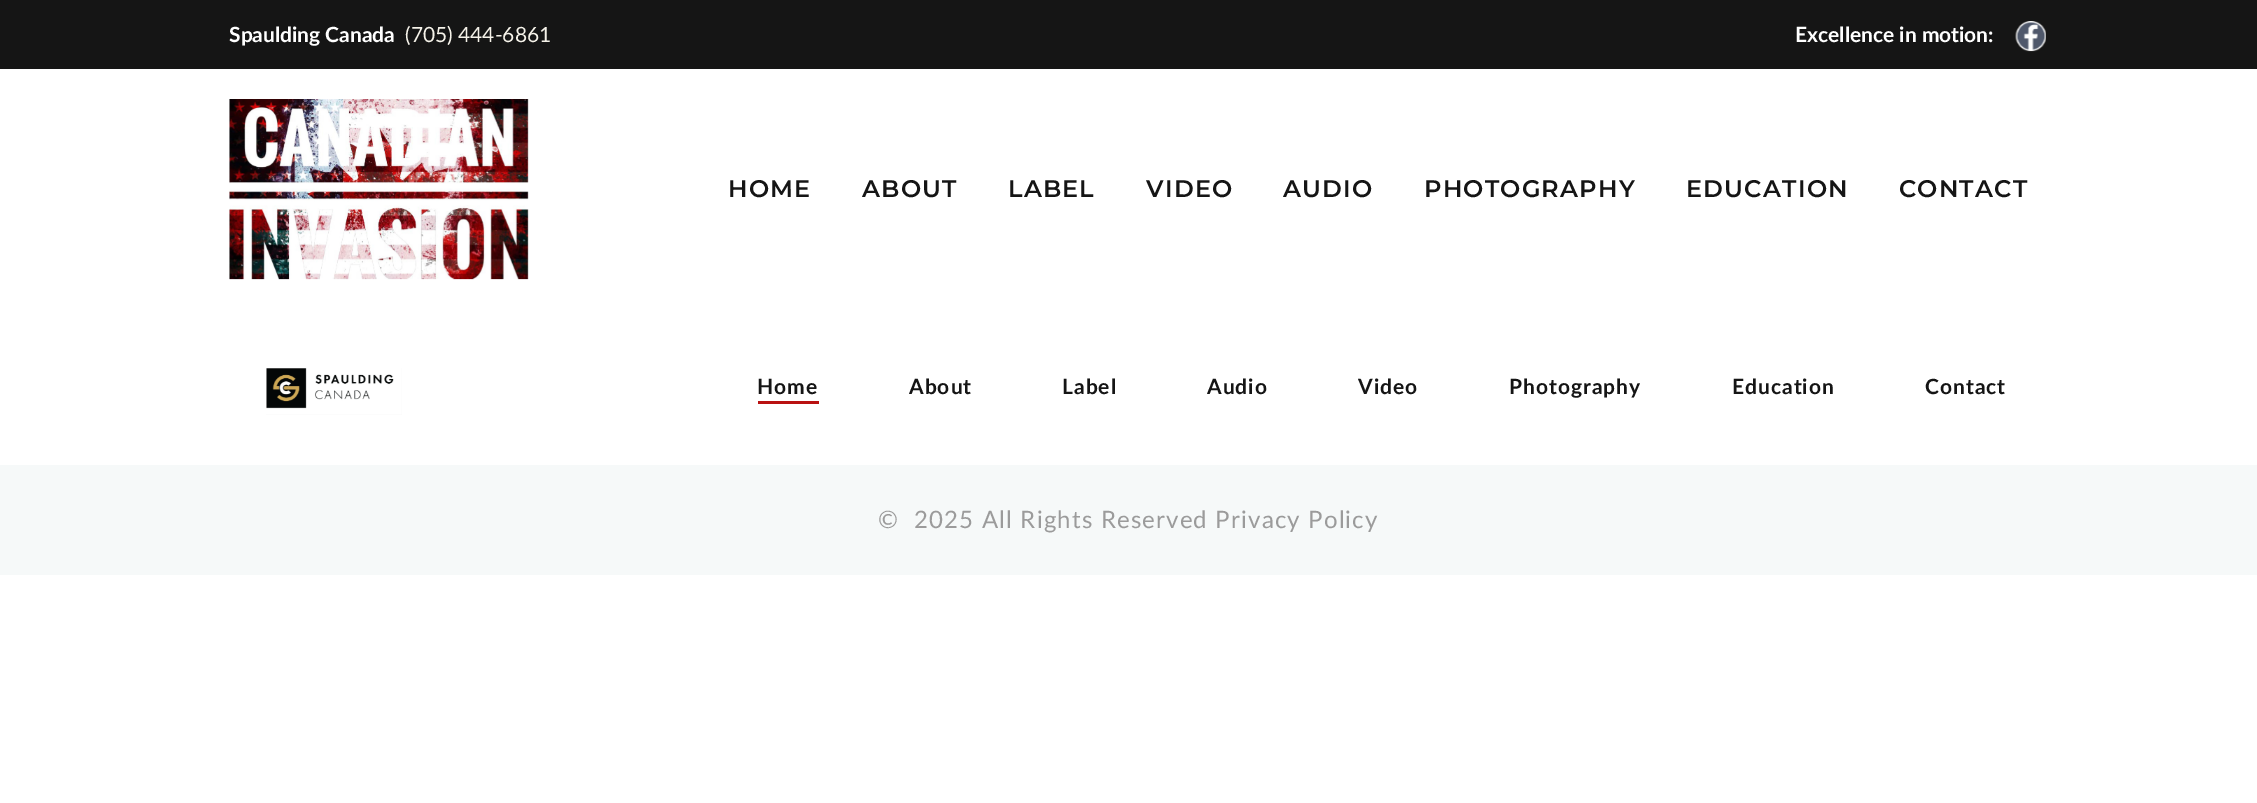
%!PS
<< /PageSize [2257 803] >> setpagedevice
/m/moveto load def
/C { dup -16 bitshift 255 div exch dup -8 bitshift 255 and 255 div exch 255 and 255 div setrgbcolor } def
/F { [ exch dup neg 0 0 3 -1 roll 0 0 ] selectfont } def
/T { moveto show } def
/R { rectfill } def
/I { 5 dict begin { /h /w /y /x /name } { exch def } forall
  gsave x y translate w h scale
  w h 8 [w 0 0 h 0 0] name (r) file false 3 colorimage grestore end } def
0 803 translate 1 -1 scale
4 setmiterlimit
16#FFFFFF C
0 0 2257 803 R
16#151515 C
0 0 2257 69 R
/Lato-Bold 21 F
16#FFFFFF C
(Spaulding Canada) 229 42 T
/Lato-Regular 21 F
16#F5F2E9 C
(\(705\) 444-6861) 405 42 T
/Lato-Bold 21 F
16#FFFFFF C
(Excellence in motion:) 1795 42 T
(1.rgb) 2015 21 31 31 I
(2.rgb) 229 99 300 181 I
/Montserrat-SemiBold 24 F
16#151515 C
728 197 m 1.2 0 (HOME) ashow
862 197 m 1.2 0 (ABOUT) ashow
1008 197 m 1.2 0 (LABEL) ashow
1146 197 m 1.2 0 (VIDEO) ashow
1283 197 m 1.2 0 (AUDIO) ashow
1424 197 m 1.2 0 (PHOTOGRAPHY) ashow
1686 197 m 1.2 0 (EDUCATION) ashow
1899 197 m 1.2 0 (CONTACT) ashow
(3.rgb) 266 368 136 47 I
/Lato-Bold 21 F
757 394 m 1 0 (Home) ashow
16#B91111 C
758 401 61 3 R
16#151515 C
909 394 m 1 0 (About) ashow
1062 394 m 1 0 (Label) ashow
1207 394 m 1 0 (Audio) ashow
1358 394 m 1 0 (Video) ashow
1509 394 m 1 0 (Photography) ashow
1732 394 m 1 0 (Education) ashow
1925 394 m 1 0 (Contact) ashow
16#F6F9F9 C
0 465 2257 110 R
/Lato-Regular 24 F
16#9B9B9B C
878 528 m 1.2 0 (©) ashow
914 528 m 1.2 0 (2025 All Rights Reserved Privacy Policy) ashow
showpage
